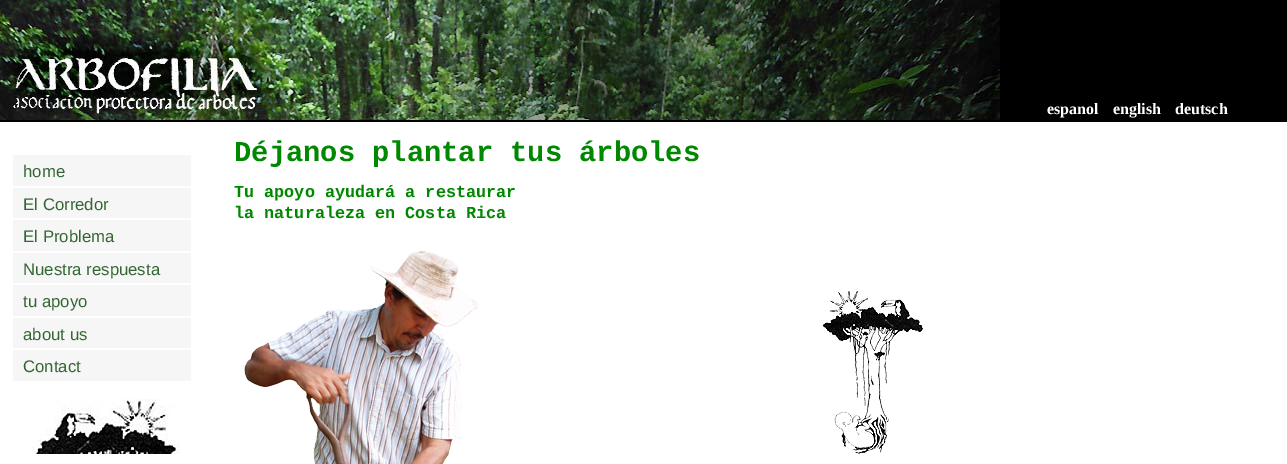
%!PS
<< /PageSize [1287 464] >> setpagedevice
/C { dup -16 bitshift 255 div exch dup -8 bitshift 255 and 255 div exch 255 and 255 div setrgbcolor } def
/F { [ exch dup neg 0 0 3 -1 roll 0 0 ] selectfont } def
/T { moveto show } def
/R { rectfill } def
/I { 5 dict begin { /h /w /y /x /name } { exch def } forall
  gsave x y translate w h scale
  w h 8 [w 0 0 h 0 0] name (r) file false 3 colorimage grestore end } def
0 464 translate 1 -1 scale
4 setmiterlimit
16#FFFFFF C
0 0 1287 464 R
16#000000 C
0 0 1287 122 R
(1.rgb) 0 0 1000 120 I
/LiberationSerif-Bold 16 F
16#FFFFFF C
(espanol) 1047 114 T
(english) 1113 114 T
(deutsch) 1175 114 T
16#F6F6F6 C
13 155 178 31 R
/LiberationSans-Regular 16.75 F
16#336633 C
(home) 23 177 T
16#F6F6F6 C
13 188 178 30 R
16#336633 C
(El Corredor) 23 210 T
16#F6F6F6 C
13 220 178 31 R
16#336633 C
(El Problema) 23 242 T
16#F6F6F6 C
13 253 178 30 R
16#336633 C
(Nuestra respuesta) 23 275 T
16#F6F6F6 C
13 285 178 31 R
16#336633 C
(tu apoyo) 23 307 T
16#F6F6F6 C
13 318 178 30 R
16#336633 C
(about us) 23 340 T
16#F6F6F6 C
13 350 178 31 R
16#336633 C
(Contact) 23 372 T
/LiberationMono-Bold 28.75 F
16#008800 C
(Déjanos plantar tus árboles) 234 161 T
/LiberationMono-Bold 16.8 F
(Tu apoyo ayudará a restaurar) 234 197 T
(la naturaleza en Costa Rica) 234 218 T
(2.rgb) 244 250 234 214 I
(3.rgb) 823 291 100 163 I
(4.rgb) 30 399 150 55 I
showpage
